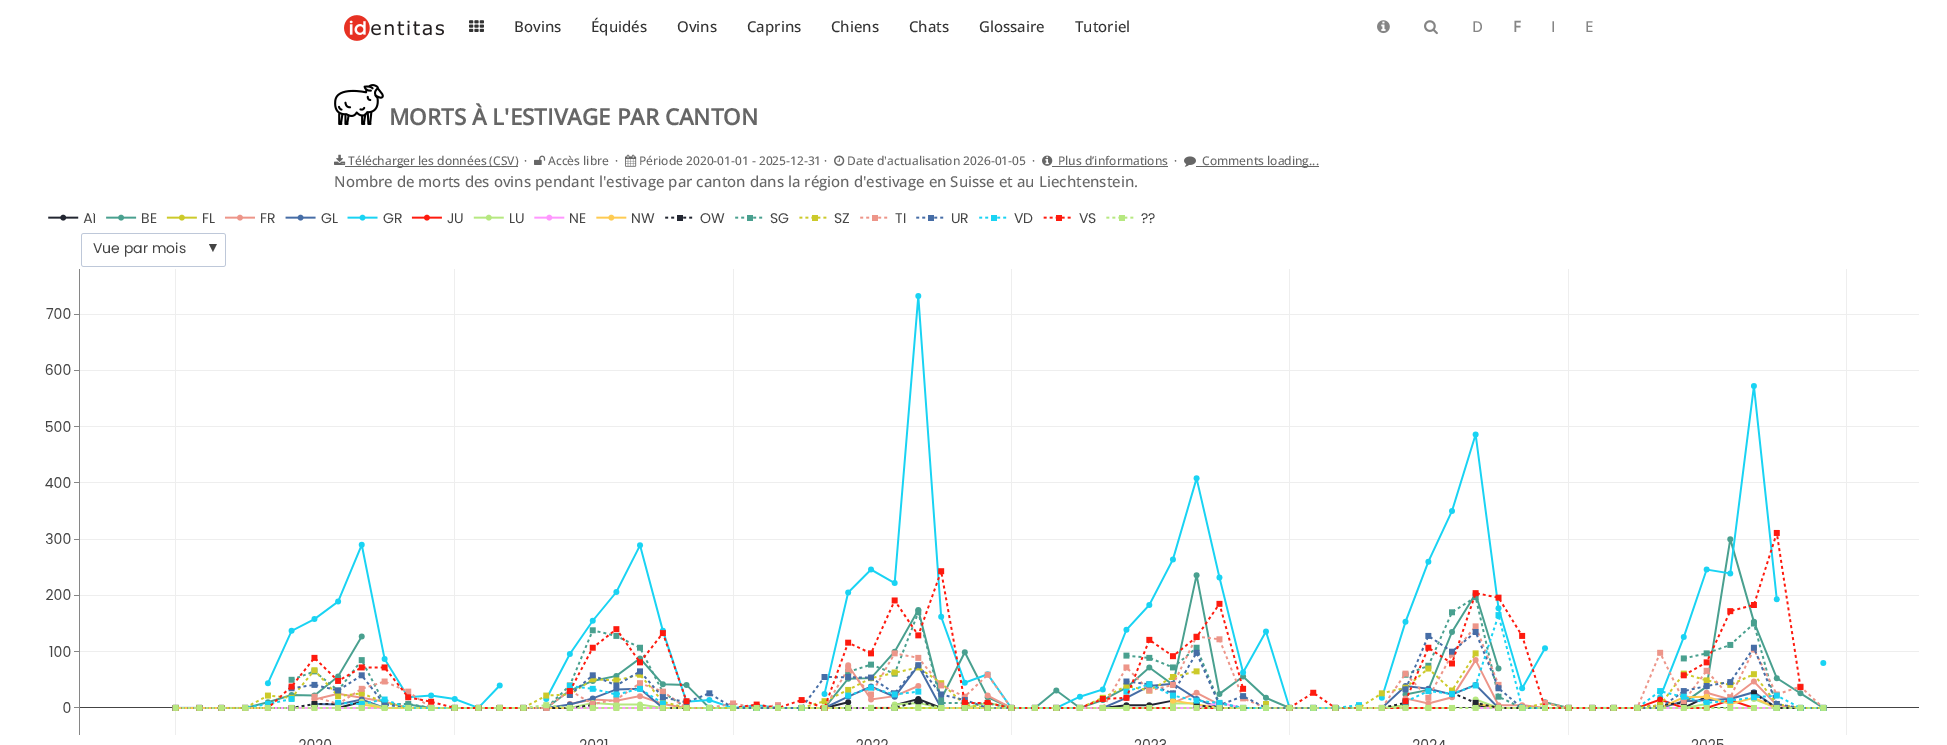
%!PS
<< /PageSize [1947 745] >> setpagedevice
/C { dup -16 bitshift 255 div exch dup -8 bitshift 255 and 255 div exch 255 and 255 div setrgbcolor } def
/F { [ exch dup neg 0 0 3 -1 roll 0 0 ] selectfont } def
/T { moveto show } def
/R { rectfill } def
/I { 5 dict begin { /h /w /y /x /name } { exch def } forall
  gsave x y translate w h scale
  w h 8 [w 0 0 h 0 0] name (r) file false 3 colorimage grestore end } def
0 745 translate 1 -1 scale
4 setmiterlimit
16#FFFFFF C
0 0 1947 745 R
(1.rgb) 344 15 100 26 I
(2.rgb) 469 20 15 12 I
/OpenSans-Medium 15 F
16#333333 C
(Bovins) 514 32 T
(Équidés) 591 32 T
(Ovins) 677 32 T
(Caprins) 747 32 T
(Chiens) 831 32 T
(Chats) 909 32 T
(Glossaire) 979 32 T
(Tutoriel) 1075 32 T
(3.rgb) 1377 20 13 14 I
(4.rgb) 1424 20 14 15 I
16#858585 C
(D) 1472 32 T
/OpenSans-Bold 15 F
(F) 1513 32 T
/OpenSans-Medium 15 F
(I) 1551 32 T
(E) 1585 32 T
(5.rgb) 334 84 50 41 I
/OpenSans-Bold 22.5 F
16#666666 C
(MORTS À L'ESTIVAGE PAR CANTON) 389 125 T
(6.rgb) 334 154 12 11 I
345 166 173 1 R
/OpenSans-Medium 12 F
(Télécharger les données \(CSV\)) 348 165 T
(·) 524 165 T
(7.rgb) 534 155 12 10 I
(Accès libre) 548 165 T
(·) 615 165 T
(8.rgb) 625 154 12 13 I
(Période 2020-01-01 - 2025-12-31 ·) 639 165 T
(9.rgb) 834 155 11 11 I
(Date d'actualisation 2026-01-05) 847 165 T
(·) 1032 165 T
(10.rgb) 1042 155 11 11 I
(Plus d’informations) 1058 165 T
1052 166 116 1 R
(·) 1174 165 T
(11.rgb) 1184 156 12 11 I
1196 166 123 1 R
(Comments loading...) 1202 165 T
/OpenSans-Medium 15 F
(Nombre de morts des ovins pendant l'estivage par canton dans la région d'estivage en Suisse et au Liechtenstein.) 334 187 T
/Poppins-Regular 14 F
16#444444 C
(AI) 83 223 T
(12.rgb) 48 214 1086 53 I
(BE) 141 223 T
(FL) 202 223 T
(FR) 260 223 T
(GL) 321 223 T
(GR) 383 223 T
(JU) 447 223 T
(LU) 509 223 T
(NE) 569 223 T
(NW) 631 223 T
(OW) 700 223 T
(SG) 770 223 T
(SZ) 834 223 T
(TI) 895 223 T
(UR) 951 223 T
(VD) 1014 223 T
(VS) 1079 223 T
(??) 1141 223 T
(Vue par mois) 93 253 T
/LiberationSans-Regular 14 F
(▼) 206 252 T
(13.rgb) 45 269 1874 476 I
showpage
